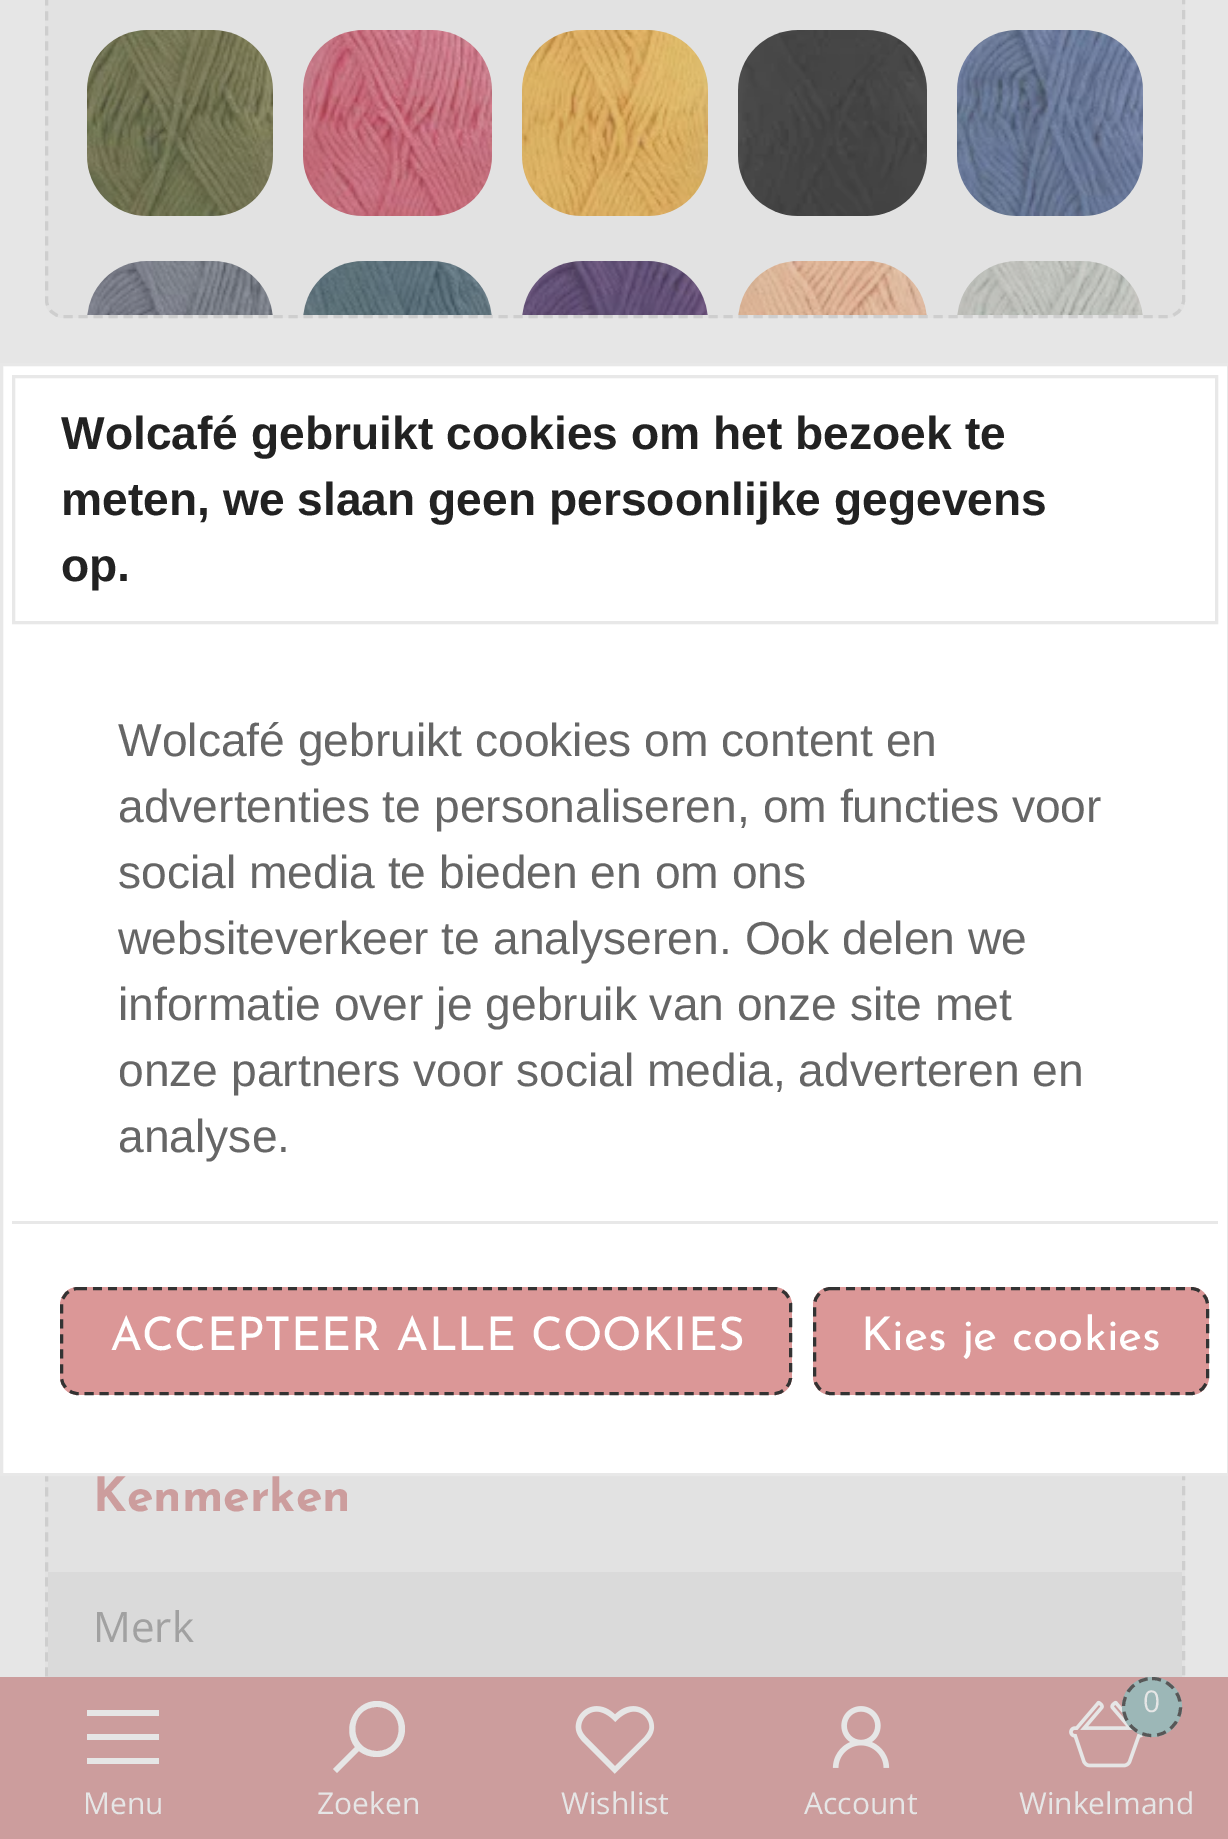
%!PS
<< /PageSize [1228 1839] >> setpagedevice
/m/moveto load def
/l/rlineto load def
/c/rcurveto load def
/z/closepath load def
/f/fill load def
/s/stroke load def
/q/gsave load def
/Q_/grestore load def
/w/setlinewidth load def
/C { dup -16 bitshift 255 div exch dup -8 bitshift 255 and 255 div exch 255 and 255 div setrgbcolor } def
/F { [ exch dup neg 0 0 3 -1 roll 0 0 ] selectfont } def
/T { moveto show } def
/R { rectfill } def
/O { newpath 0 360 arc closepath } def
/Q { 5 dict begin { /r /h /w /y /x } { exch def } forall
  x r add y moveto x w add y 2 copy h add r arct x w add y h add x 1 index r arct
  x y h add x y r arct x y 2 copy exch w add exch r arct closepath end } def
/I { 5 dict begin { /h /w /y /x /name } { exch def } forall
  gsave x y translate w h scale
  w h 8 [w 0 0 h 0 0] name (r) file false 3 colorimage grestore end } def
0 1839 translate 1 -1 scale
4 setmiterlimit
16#E6E6E6 C
0 0 1228 1839 R
16#E2E2E2 C
45 1476 1140 201 R
16#CECECE C
3 w
[9 6] 0 setdash
63 1429.5 m 1104 0 l 9 0 16.5 7.5 16.5 16.5 c 0 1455 l 0 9 -7.5 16.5 -16.5 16.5 c -1104 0 l -9 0 -16.5 -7.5 -16.5 -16.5 c 0 -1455 l 0 -9 7.5 -16.5 16.5 -16.5 c z s
/JosefinSans-Bold 48 F
16#CC9D9D C
(Kenmerken) 93 1511 T
16#FFFFFF C
1.5 364.5 m 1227 0 l 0 1110 l -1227 0 l z q f Q_
16#E8E8E8 C
[] 0 setdash
s
13.5 376.5 1203 246 rectstroke
/LiberationSans-Bold 46.2 F
16#222222 C
(Wolcafé gebruikt cookies om het bezoek te) 61 449 T
(meten, we slaan geen persoonlijke gegevens) 61 515 T
(op.) 61 581 T
/LiberationSans-Regular 46.2 F
16#666666 C
(Wolcafé gebruikt cookies om content en) 118 756 T
(advertenties te personaliseren, om functies voor) 118 822 T
(social media te bieden en om ons) 118 888 T
(websiteverkeer te analyseren. Ook delen we) 118 954 T
(informatie over je gebruik van onze site met) 118 1020 T
(onze partners voor social media, adverteren en) 118 1086 T
(analyse.) 118 1152 T
16#E8E8E8 C
12 1221 1206 3 R
16#DB9797 C
60 1287 732 108 18 Q f
16#333333 C
[9 6] 0 setdash
78 1288.5 m 696 0 l 9 0 16.5 7.5 16.5 16.5 c 0 72 l 0 9 -7.5 16.5 -16.5 16.5 c -696 0 l -9 0 -16.5 -7.5 -16.5 -16.5 c 0 -72 l 0 -9 7.5 -16.5 16.5 -16.5 c z s
/JosefinSans-Regular 46.2 F
16#FFFFFF C
(ACCEPTEER ALLE COOKIES) 110 1350 T
16#DB9797 C
813 1287 396 108 18 Q f
16#333333 C
831 1288.5 m 360 0 l 9 0 16.5 7.5 16.5 16.5 c 0 72 l 0 9 -7.5 16.5 -16.5 16.5 c -360 0 l -9 0 -16.5 -7.5 -16.5 -16.5 c 0 -72 l 0 -9 7.5 -16.5 16.5 -16.5 c z s
16#FFFFFF C
(Kies je cookies) 861 1350 T
16#E2E2E2 C
45 -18 1140 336 18 Q f
16#CECECE C
63 -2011.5 m 1104 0 l 9 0 16.5 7.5 16.5 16.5 c 0 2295 l 0 9 -7.5 16.5 -16.5 16.5 c -1104 0 l -9 0 -16.5 -7.5 -16.5 -16.5 c 0 -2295 l 0 -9 7.5 -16.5 16.5 -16.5 c z s
(1.rgb) 87 30 186 186 I
(2.rgb) 303 30 189 186 I
(3.rgb) 522 30 186 186 I
(4.rgb) 738 30 189 186 I
(5.rgb) 957 30 186 186 I
(6.rgb) 87 261 186 54 I
(7.rgb) 303 261 189 54 I
(8.rgb) 522 261 186 54 I
(9.rgb) 738 261 189 54 I
(10.rgb) 957 261 186 54 I
16#DADADA C
48 1572 1134 105 R
/OpenSans-Regular 42 F
16#A1A1A1 C
(Merk) 93 1642 T
16#CC9D9D C
0 1677 1228 162 R
16#E6E6E6 C
87 1710 m 0 6 l 72 0 l 0 -6 l z 87 1734 m 0 6 l 72 0 l 0 -6 l z 87 1758 m 0 6 l 72 0 l 0 -6 l z f
/OpenSans-Regular 30 F
(Menu) 83 1814 T
377 1701 m -23 0 -36 28 -22 46 c -22 22 l 4 4 l 22 -22 l 5 4 11 6 18 6 c 15 0 28 -13 28 -28 c 0 -16 -13 -28 -28 -28 c z 377 1707 m 29 0 29 44 0 44 c -29 0 -29 -44 0 -44 c z f
(Zoeken) 317 1814 T
(11.rgb) 575 1706 80 68 I
(Wishlist) 561 1814 T
(12.rgb) 832 1706 58 62 I
(Account) 804 1814 T
(13.rgb) 1069 1700 75 68 I
16#9CB7B7 C
1152 1707 30 O f
16#575757 C
1152 1678.5 m 15.5 0 28.5 13 28.5 28.5 c 0 15.5 -13 28.5 -28.5 28.5 c -15.5 0 -28.5 -13 -28.5 -28.5 c 0 -15.5 13 -28.5 28.5 -28.5 c z s
16#E6E6E6 C
(0) 1143 1712 T
(Winkelmand) 1019 1814 T
showpage
